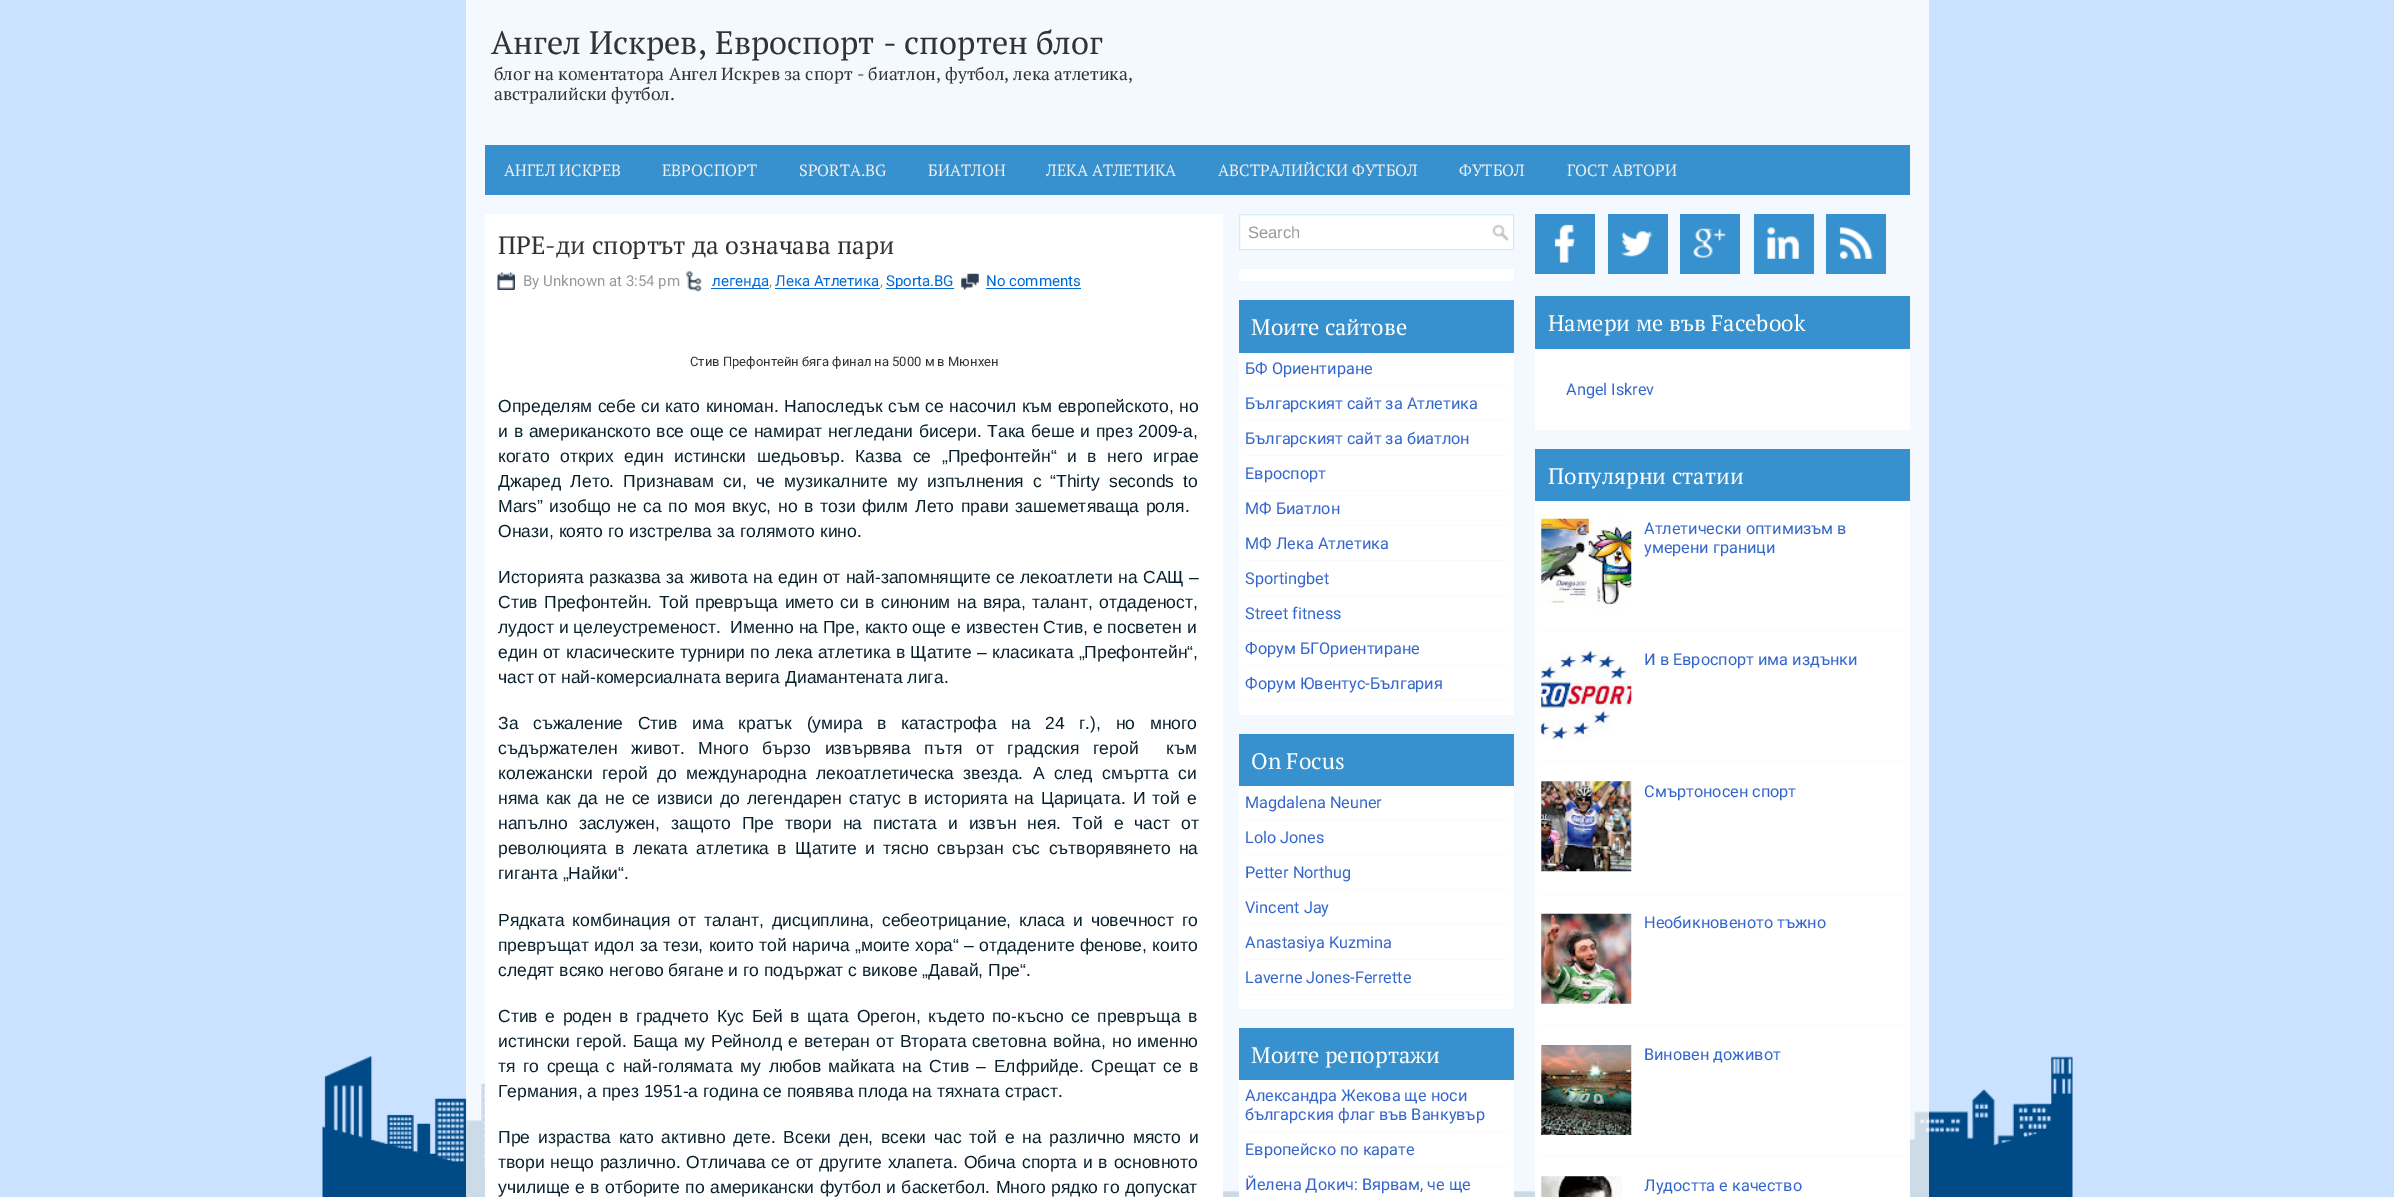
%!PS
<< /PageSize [2394 1197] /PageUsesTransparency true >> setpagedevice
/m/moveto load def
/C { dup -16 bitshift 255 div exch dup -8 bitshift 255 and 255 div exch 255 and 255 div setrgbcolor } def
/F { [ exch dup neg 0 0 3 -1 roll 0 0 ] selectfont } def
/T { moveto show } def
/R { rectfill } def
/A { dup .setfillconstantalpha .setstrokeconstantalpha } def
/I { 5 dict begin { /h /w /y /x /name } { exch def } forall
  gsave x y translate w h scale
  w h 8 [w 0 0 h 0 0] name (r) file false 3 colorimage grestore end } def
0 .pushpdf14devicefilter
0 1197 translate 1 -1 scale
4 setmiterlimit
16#CAE1FF C
0 0 2394 1197 R
(1.rgb) 322 1056 1751 141 I
0.8 A
16#FFFFFF C
466 0 1463 1197 R
/PTSerif-Regular 32.5 F
1 A
16#333333 C
(Ангел Искрев, Евроспорт - спортен блог) 491 54 T
/PTSerif-Regular 17.5 F
(блог на коментатора Ангел Искрев за спорт - биатлон, футбол, лека атлетика,) 494 80 T
(австралийски футбол.) 494 100 T
16#3691CE C
485 145 1425 50 R
/PTSerif-Regular 16.25 F
16#EEEEEE C
(АНГЕЛ ИСКРЕВ) 504 176 T
(ЕВРОСПОРТ) 662 176 T
(SPORTA.BG) 799 176 T
(БИАТЛОН) 928 176 T
(ЛЕКА АТЛЕТИКА) 1046 176 T
(АВСТРАЛИЙСКИ ФУТБОЛ) 1218 176 T
(ФУТБОЛ) 1459 176 T
(ГОСТ АВТОРИ) 1567 176 T
16#FFFFFF C
485 214 738 983 R
/PTSerif-Regular 25 F
16#333333 C
(ПРЕ-ди спортът да означава пари) 498 254 T
(2.rgb) 497 272 18 18 I
/Roboto-Regular 15 F
16#999999 C
(By Unknown at 3:54 pm) 523 286 T
(3.rgb) 686 271 16 21 I
16#0069D6 C
711 288 58 1 R
(легенда) 712 286 T
16#999999 C
(,) 769 286 T
16#0069D6 C
(Лека Атлетика) 775 286 T
775 288 105 1 R
16#999999 C
(,) 880 286 T
16#0069D6 C
886 288 68 1 R
(Sporta.BG) 886 286 T
(4.rgb) 961 273 18 17 I
(No comments) 986 286 T
986 288 95 1 R
/Roboto-Regular 13 F
16#333333 C
(Стив Префонтейн бяга финал на 5000 м в Мюнхен) 690 366 T
/LiberationSans-Regular 17.5 F
16#081F2C C
498 412 m .5 0 32 (Определям себе си като киноман. Напоследък съм се насочил към европейското, но) widthshow
498 437 m .9 0 32 (и в американското все още се намират негледани бисери. Така беше и през 2009-а,) widthshow
498 462 m 5.75 0 32 (когато открих един истински шедьовър. Казва се „Префонтейн“ и в него играе) widthshow
498 487 m 4.5 0 32 (Джаред Лето. Признавам си, че музикалните му изпълнения с) widthshow
1050 487 m 4.5 0 32 (“Thirty seconds to) widthshow
(Mars”) 498 512 T
549 512 m 1.75 0 32 (изобщо не са по моя вкус, но в този филм Лето прави зашеметяваща роля.) widthshow
(Онази, която го изстрелва за голямото кино.) 498 537 T
498 583 m .5 0 32 (Историята разказва за живота на един от най-запомнящите се лекоатлети на САЩ –) widthshow
498 608 m 1.6 0 32 (Стив Префонтейн. Той превръща името си в синоним на вяра, талант, отдаденост,) widthshow
(лудост и целеустременост.  Именно на Пре, както още е известен Стив, е посветен и) 498 633 T
498 658 m .4 0 32 (един от класическите турнири по лека атлетика в Щатите – класиката „Префонтейн“,) widthshow
(част от най-комерсиалната верига Диамантената лига.) 498 683 T
498 729 m 9.75 0 32 (За съжаление Стив има кратък \(умира в катастрофа на 24 г.\), но много) widthshow
498 754 m 9 0 32 (съдържателен живот. Много бързо извървява пътя от градския герой  към) widthshow
498 779 m 4.5 0 32 (колежански герой до международна лекоатлетическа звезда. А след смъртта си) widthshow
498 804 m 2.25 0 32 (няма как да не се извиси до легендарен статус в историята на Царицата. И той е) widthshow
498 829 m 6.25 0 32 (напълно заслужен, защото Пре твори на пистата и извън нея. Той е част от) widthshow
498 854 m 3.5 0 32 (революцията в леката атлетика в Щатите и тясно свързан със сътворявянето на) widthshow
(гиганта „Найки“.) 498 879 T
498 926 m 3 0 32 (Рядката комбинация от талант, дисциплина, себеотрицание, класа и човечност го) widthshow
498 951 m .5 0 32 (превръщат идол за тези, които той нарича „моите хора“ – отдадените фенове, които) widthshow
(следят всяко негово бягане и го подържат с викове „Давай, Пре“.) 498 976 T
498 1022 m 2.75 0 32 (Стив е роден в градчето Кус Бей в щата Орегон, където по-късно се превръща в) widthshow
498 1047 m 1.25 0 32 (истински герой. Баща му Рейнолд е ветеран от Втората световна война, но именно) widthshow
498 1072 m 2.6 0 32 (тя го среща с най-голямата му любов майката на Стив – Елфрийде. Срещат се в) widthshow
(Германия, а през 1951-а година се появява плода на тяхната страст.) 498 1097 T
498 1143 m 2.9 0 32 (Пре израства като активно дете. Всеки ден, всеки час той е на различно място и) widthshow
498 1168 m .9 0 32 (твори нещо различно. Отличава се от другите хлапета. Обича спорта и в основното) widthshow
498 1193 m .6 0 32 (училище е в отборите по американски футбол и баскетбол. Много рядко го допускат) widthshow
16#FFFFFF C
1240 215 273 34 R
(5.rgb) 1492 224 17 18 I
16#D6EBF5 C
1239.5 214.5 274 35 rectstroke
/LiberationSans-Regular 16.5 F
16#999999 C
(Search) 1248 238 T
16#FFFFFF C
1239 269 275 12 R
1239 353 275 362 R
16#3691CE C
1239 300 275 53 R
/PTSerif-Regular 22.5 F
16#FFFFFF C
(Моите сайтове) 1251 335 T
16#FAFAFA C
1245 385 263 1 R
/Roboto-Regular 16.25 F
16#3366CC C
(БФ Ориентиране) 1245 374 T
16#FAFAFA C
1245 420 263 1 R
16#3366CC C
(Българският сайт за Атлетика) 1245 409 T
16#FAFAFA C
1245 455 263 1 R
16#3366CC C
(Българският сайт за биатлон) 1245 444 T
16#FAFAFA C
1245 490 263 1 R
16#3366CC C
(Евроспорт) 1245 479 T
16#FAFAFA C
1245 525 263 1 R
16#3366CC C
(МФ Биатлон) 1245 514 T
16#FAFAFA C
1245 560 263 1 R
16#3366CC C
(МФ Лека Атлетика) 1245 549 T
16#FAFAFA C
1245 595 263 1 R
16#3366CC C
(Sportingbet) 1245 584 T
16#FAFAFA C
1245 630 263 1 R
16#3366CC C
(Street fitness) 1245 619 T
16#FAFAFA C
1245 665 263 1 R
16#3366CC C
(Форум БГОриентиране) 1245 654 T
16#FAFAFA C
1245 700 263 1 R
16#3366CC C
(Форум Ювентус-България) 1245 689 T
16#FFFFFF C
1239 786 275 223 R
16#3691CE C
1239 734 275 52 R
/PTSerif-Regular 22.5 F
16#FFFFFF C
(On Focus) 1251 769 T
16#FAFAFA C
1245 819 263 1 R
/Roboto-Regular 16.25 F
16#3366CC C
(Magdalena Neuner) 1245 808 T
16#FAFAFA C
1245 854 263 1 R
16#3366CC C
(Lolo Jones) 1245 843 T
16#FAFAFA C
1245 889 263 1 R
16#3366CC C
(Petter Northug) 1245 878 T
16#FAFAFA C
1245 924 263 1 R
16#3366CC C
(Vincent Jay) 1245 913 T
16#FAFAFA C
1245 959 263 1 R
16#3366CC C
(Anastasiya Kuzmina) 1245 948 T
16#FAFAFA C
1245 994 263 1 R
16#3366CC C
(Laverne Jones-Ferrette) 1245 983 T
16#FFFFFF C
1239 1080 275 117 R
16#3691CE C
1239 1028 275 52 R
/PTSerif-Regular 22.5 F
16#FFFFFF C
(Моите репортажи) 1251 1063 T
16#FAFAFA C
1245 1131 263 1 R
/Roboto-Regular 16.25 F
16#3366CC C
(Александра Жекова ще носи) 1245 1101 T
(българския флаг във Ванкувър) 1245 1120 T
16#FAFAFA C
1245 1166 263 1 R
16#3366CC C
(Европейско по карате) 1245 1155 T
(Йелена Докич: Вярвам, че ще) 1245 1190 T
16#3691CE C
1535 214 60 60 R
1608 214 60 60 R
1680 214 60 60 R
1754 214 60 60 R
1826 214 60 60 R
(6.rgb) 1554 224 22 39 I
(7.rgb) 1621 231 32 26 I
(8.rgb) 1693 228 33 30 I
(9.rgb) 1767 227 32 32 I
(10.rgb) 1839 227 34 32 I
16#FFFFFF C
1535 349 375 81 R
16#3691CE C
1535 296 375 53 R
/PTSerif-Regular 22.5 F
16#FFFFFF C
(Намери ме във Facebook) 1548 331 T
/Roboto-Regular 16.25 F
16#3366CC C
(Angel Iskrev) 1566 395 T
16#FFFFFF C
1535 501 375 696 R
16#3691CE C
1535 449 375 52 R
/PTSerif-Regular 22.5 F
16#FFFFFF C
(Популярни статии) 1548 484 T
16#FAFAFA C
1541 630 363 1 R
(11.rgb) 1541 518 91 91 I
/Roboto-Regular 16.25 F
16#3366CC C
(Атлетически оптимизъм в) 1644 534 T
(умерени граници) 1644 553 T
16#FAFAFA C
1541 761 363 1 R
(12.rgb) 1541 650 91 90 I
16#3366CC C
(И в Евроспорт има издънки) 1644 665 T
16#FAFAFA C
1541 894 363 1 R
(13.rgb) 1541 781 91 91 I
16#3366CC C
(Смъртоносен спорт) 1644 797 T
16#FAFAFA C
1541 1025 363 1 R
(14.rgb) 1541 913 91 91 I
16#3366CC C
(Необикновеното тъжно) 1644 928 T
16#FAFAFA C
1541 1156 363 1 R
(15.rgb) 1541 1045 91 90 I
16#3366CC C
(Виновен доживот) 1644 1060 T
(16.rgb) 1541 1176 81 21 I
(Лудостта е качество) 1644 1191 T
.poppdf14devicefilter showpage
